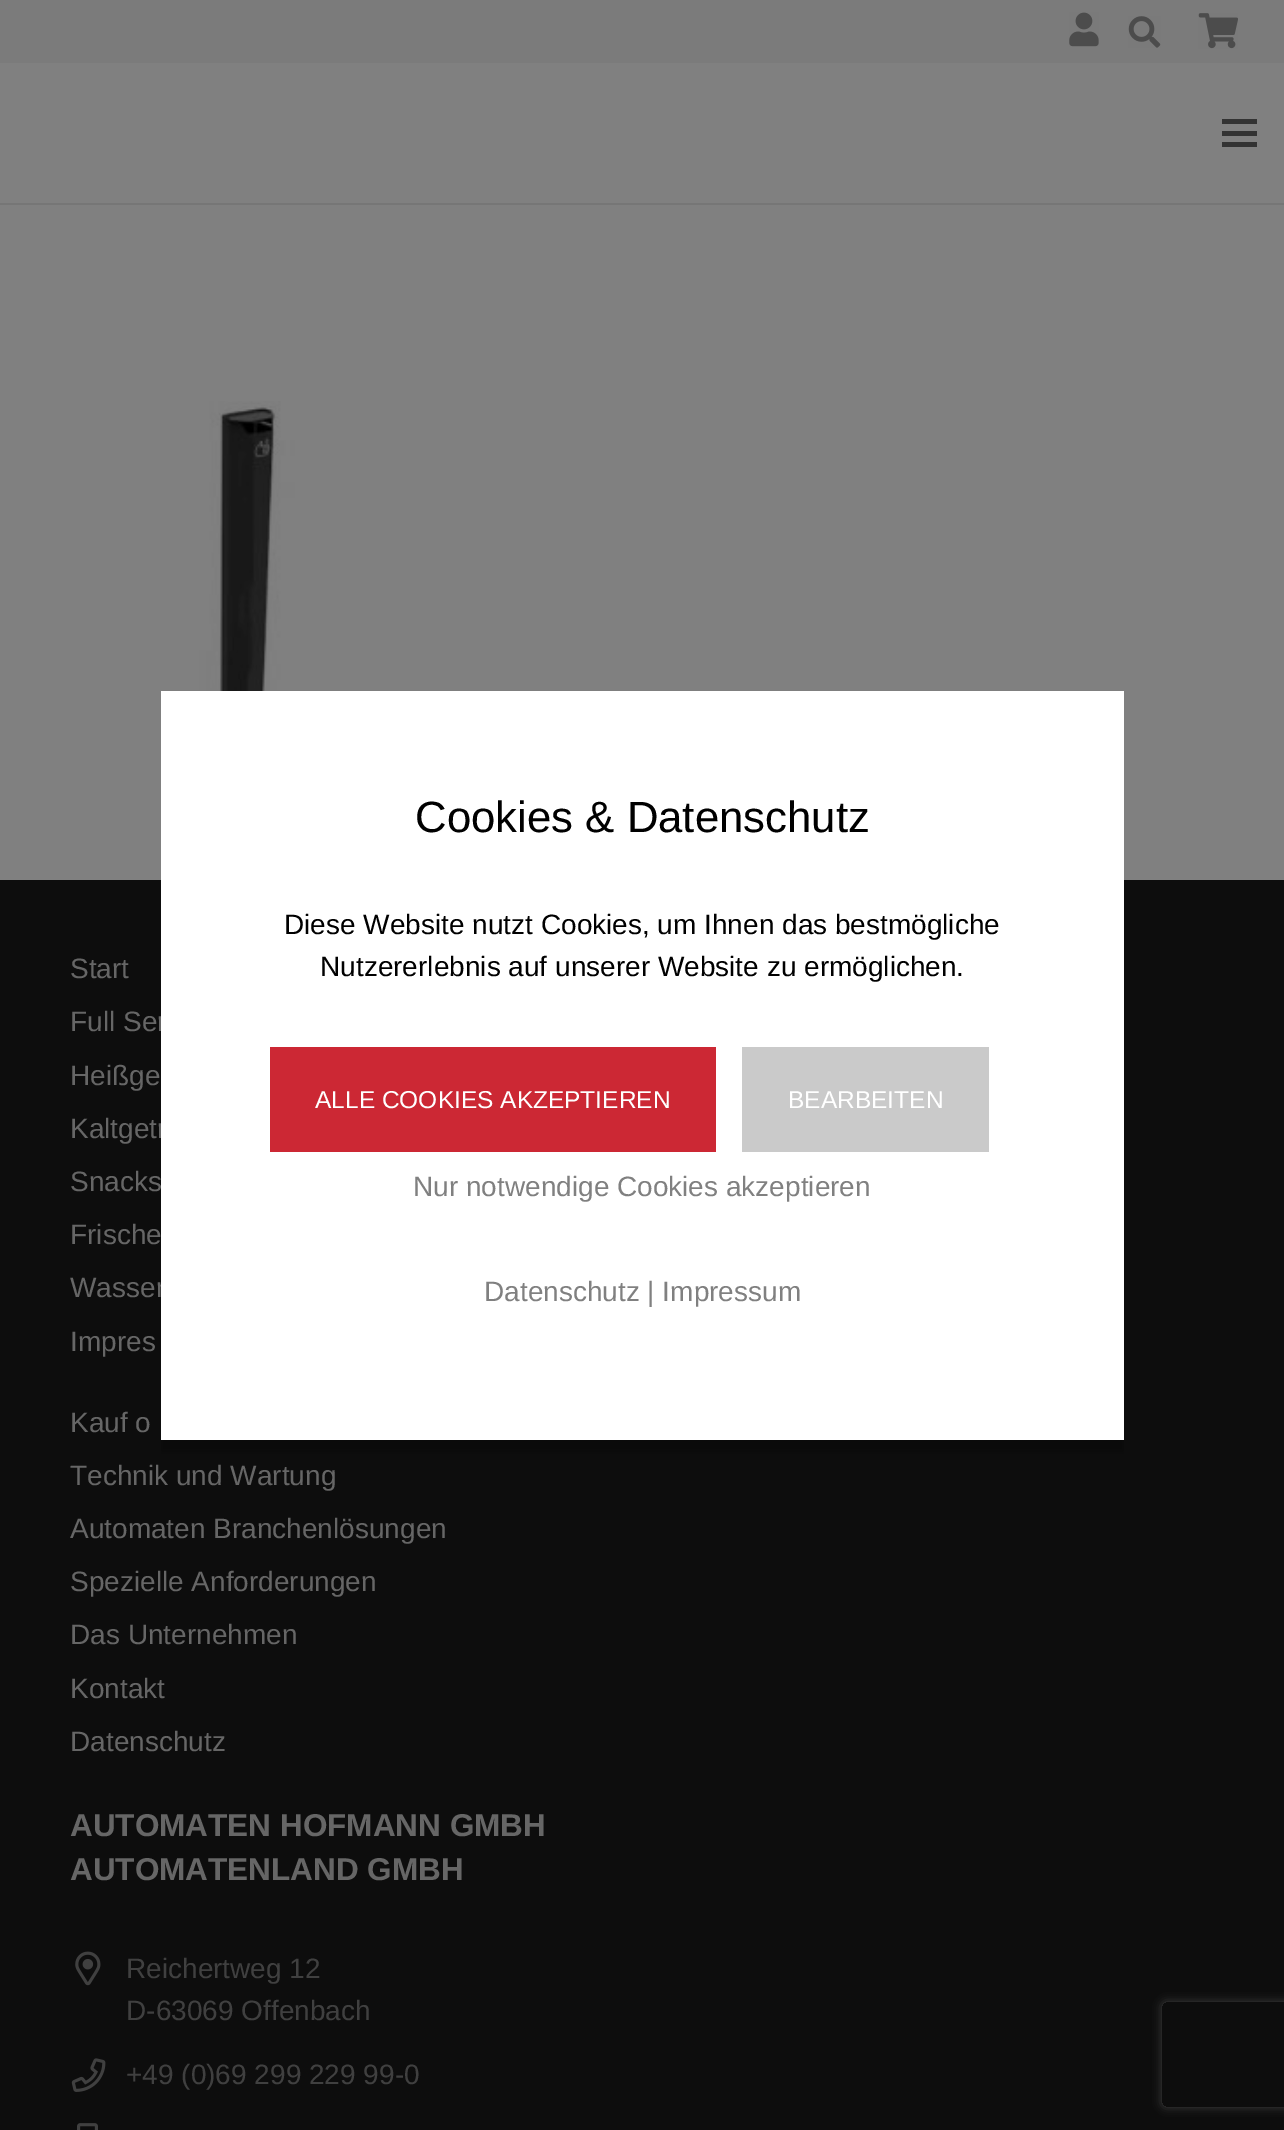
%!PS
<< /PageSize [1284 2130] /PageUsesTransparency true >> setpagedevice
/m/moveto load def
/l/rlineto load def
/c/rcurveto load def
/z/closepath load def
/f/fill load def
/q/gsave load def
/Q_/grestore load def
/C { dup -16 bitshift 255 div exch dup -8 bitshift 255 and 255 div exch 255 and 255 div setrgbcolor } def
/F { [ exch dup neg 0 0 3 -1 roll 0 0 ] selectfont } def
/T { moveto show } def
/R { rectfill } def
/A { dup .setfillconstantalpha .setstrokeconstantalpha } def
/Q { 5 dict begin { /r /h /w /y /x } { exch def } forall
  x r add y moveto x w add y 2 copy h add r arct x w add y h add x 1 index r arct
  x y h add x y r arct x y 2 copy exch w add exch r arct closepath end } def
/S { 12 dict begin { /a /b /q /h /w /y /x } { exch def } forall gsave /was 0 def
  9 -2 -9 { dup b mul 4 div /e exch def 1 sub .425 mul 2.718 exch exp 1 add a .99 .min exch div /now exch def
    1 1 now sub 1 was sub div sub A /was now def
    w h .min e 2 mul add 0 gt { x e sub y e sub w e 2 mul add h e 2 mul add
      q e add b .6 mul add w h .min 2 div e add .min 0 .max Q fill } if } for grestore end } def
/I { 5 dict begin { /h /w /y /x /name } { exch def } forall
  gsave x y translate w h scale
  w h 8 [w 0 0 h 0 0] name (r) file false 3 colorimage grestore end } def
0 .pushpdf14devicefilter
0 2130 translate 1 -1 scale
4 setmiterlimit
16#808080 C
0 0 1284 2130 R
16#7B7B7B C
0 0 1284 63 R
(1.rgb) 1069 12 30 35 I
(2.rgb) 1128 16 33 32 I
(3.rgb) 1198 13 40 36 I
16#767676 C
0 203 m 0 2 l 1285 0 l 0 -140 l -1 0 l 0 138 l z f
16#333333 C
1222 131 35 5 R
1222 119 35 5 R
1222 142 35 5 R
(4.rgb) 195 401 111 290 I
16#0D0D0D C
0 880 1284 1250 R
q
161 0 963 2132 rectclip
16#000000 C
161 702 963 749 0 5 .25 S
Q_
/LiberationSans-Regular 28 F
16#666666 C
(Full Ser) 70 1031 T
(Kaltgetr) 70 1138 T
(Wasser) 70 1297 T
16#FFFFFF C
161 691 963 749 R
/LiberationSans-Regular 43.75 F
16#000000 C
(Cookies & Datenschutz) 415 832 T
/LiberationSans-Regular 28 F
(Diese Website nutzt Cookies, um Ihnen das bestmögliche) 284 934 T
(Nutzererlebnis auf unserer Website zu ermöglichen.) 320 976 T
16#CC2834 C
270 1047 446 105 R
/LiberationSans-Regular 24.5 F
16#FFFFFF C
(ALLE COOKIES AKZEPTIEREN) 315 1108 T
16#CACACA C
742 1047 247 105 R
16#FFFFFF C
(BEARBEITEN) 788 1108 T
/LiberationSans-Regular 28 F
16#808080 C
(Nur notwendige Cookies akzeptieren) 413 1196 T
(Datenschutz | Impressum) 484 1301 T
16#666666 C
(Start) 70 978 T
(Heißge) 70 1085 T
(Snacks) 70 1191 T
(Frische) 70 1244 T
(Impres) 70 1351 T
(Kauf o) 70 1432 T
(Technik und Wartung) 70 1485 T
(Automaten Branchenlösungen) 70 1538 T
(Spezielle Anforderungen) 70 1591 T
(Das Unternehmen) 70 1644 T
(Kontakt) 70 1698 T
(Datenschutz) 70 1751 T
/LiberationSans-Bold 31.5 F
(AUTOMATEN HOFMANN GMBH) 70 1836 T
(AUTOMATENLAND GMBH) 70 1880 T
(5.rgb) 75 1951 26 35 I
/LiberationSans-Regular 28 F
16#404040 C
(Reichertweg 12) 126 1978 T
(D-63069 Offenbach) 126 2020 T
(6.rgb) 71 2058 35 34 I
(+49 \(0\)69 299 229 99-0) 126 2084 T
(7.rgb) 77 2123 21 7 I
q
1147 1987 m 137 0 l 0 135 l -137 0 l z 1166 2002 m 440 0 l 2 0 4 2 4 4 c 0 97 l 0 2 -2 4 -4 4 c -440 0 l -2 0 -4 -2 -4 -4 c 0 -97 l 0 -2 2 -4 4 -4 c z eoclip newpath
1162 2002 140 105 4 4.5 1 S
Q_
.poppdf14devicefilter showpage
